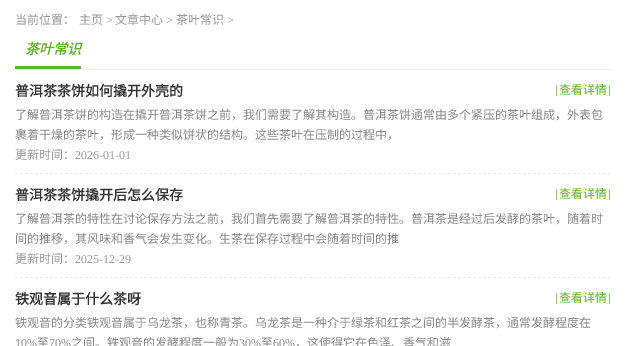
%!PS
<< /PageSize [626 346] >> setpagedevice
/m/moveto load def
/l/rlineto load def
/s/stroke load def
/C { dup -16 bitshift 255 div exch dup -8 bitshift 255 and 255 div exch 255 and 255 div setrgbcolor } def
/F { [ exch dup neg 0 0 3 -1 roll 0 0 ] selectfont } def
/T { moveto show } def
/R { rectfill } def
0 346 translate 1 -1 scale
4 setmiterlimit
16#FFFFFF C
0 0 626 346 R
/NotoSansCJKSC-Regular 12 F
16#999999 C
(当前位置：) 15 24 T
(主页) 79 24 T
/LiberationSerif-Regular 12 F
(>) 106 24 T
/NotoSansCJKSC-Regular 12 F
(文章中心) 115 24 T
/LiberationSerif-Regular 12 F
(>) 166 24 T
/NotoSansCJKSC-Regular 12 F
(茶叶常识) 176 24 T
/LiberationSerif-Regular 12 F
(>) 227 24 T
16#EEEEEE C
15 69 596 1 R
16#61B426 C
15 66 66 3 R
/NotoSansCJKSC-BoldItalic 14 F
(茶叶常识) 25 54 T
16#EEEEEE C
[3 1.98] 0 setdash
15 173.5 m 596 0 l s
/NotoSansCJKSC-Bold 14 F
16#333333 C
(普洱茶茶饼如何撬开外壳的) 15 96 T
/LiberationSerif-Regular 12 F
16#61B426 C
([) 555 94 T
/NotoSansCJKSC-Regular 12 F
(查看详情) 559 94 T
/LiberationSerif-Regular 12 F
(]) 607 94 T
/NotoSansCJKSC-Regular 12 F
16#888888 C
(了解普洱茶饼的构造在撬开普洱茶饼之前，我们需要了解其构造。普洱茶饼通常由多个紧压的茶叶组成，外表包) 15 119 T
(裹着干燥的茶叶，形成一种类似饼状的结构。这些茶叶在压制的过程中，) 15 139 T
16#999999 C
(更新时间：) 15 159 T
/LiberationSerif-Regular 12 F
(2026-01-01) 75 159 T
16#EEEEEE C
15 277.5 m 596 0 l s
/NotoSansCJKSC-Bold 14 F
16#333333 C
(普洱茶茶饼撬开后怎么保存) 15 200 T
/LiberationSerif-Regular 12 F
16#61B426 C
([) 555 198 T
/NotoSansCJKSC-Regular 12 F
(查看详情) 559 198 T
/LiberationSerif-Regular 12 F
(]) 607 198 T
/NotoSansCJKSC-Regular 12 F
16#888888 C
(了解普洱茶的特性在讨论保存方法之前，我们首先需要了解普洱茶的特性。普洱茶是经过后发酵的茶叶，随着时) 15 223 T
(间的推移，其风味和香气会发生变化。生茶在保存过程中会随着时间的推) 15 243 T
16#999999 C
(更新时间：) 15 263 T
/LiberationSerif-Regular 12 F
(2025-12-29) 75 263 T
/NotoSansCJKSC-Bold 14 F
16#333333 C
(铁观音属于什么茶呀) 15 304 T
/LiberationSerif-Regular 12 F
16#61B426 C
([) 555 302 T
/NotoSansCJKSC-Regular 12 F
(查看详情) 559 302 T
/LiberationSerif-Regular 12 F
(]) 607 302 T
/NotoSansCJKSC-Regular 12 F
16#888888 C
(铁观音的分类铁观音属于乌龙茶，也称青茶。乌龙茶是一种介于绿茶和红茶之间的半发酵茶，通常发酵程度在) 15 327 T
/LiberationSerif-Regular 12 F
(10%) 15 347 T
/NotoSansCJKSC-Regular 12 F
(至) 37 347 T
/LiberationSerif-Regular 12 F
(70%) 49 347 T
/NotoSansCJKSC-Regular 12 F
(之间。铁观音的发酵程度一般为) 71 347 T
/LiberationSerif-Regular 12 F
(30%) 239 347 T
/NotoSansCJKSC-Regular 12 F
(至) 261 347 T
/LiberationSerif-Regular 12 F
(60%) 273 347 T
/NotoSansCJKSC-Regular 12 F
(，这使得它在色泽、香气和滋) 295 347 T
showpage
